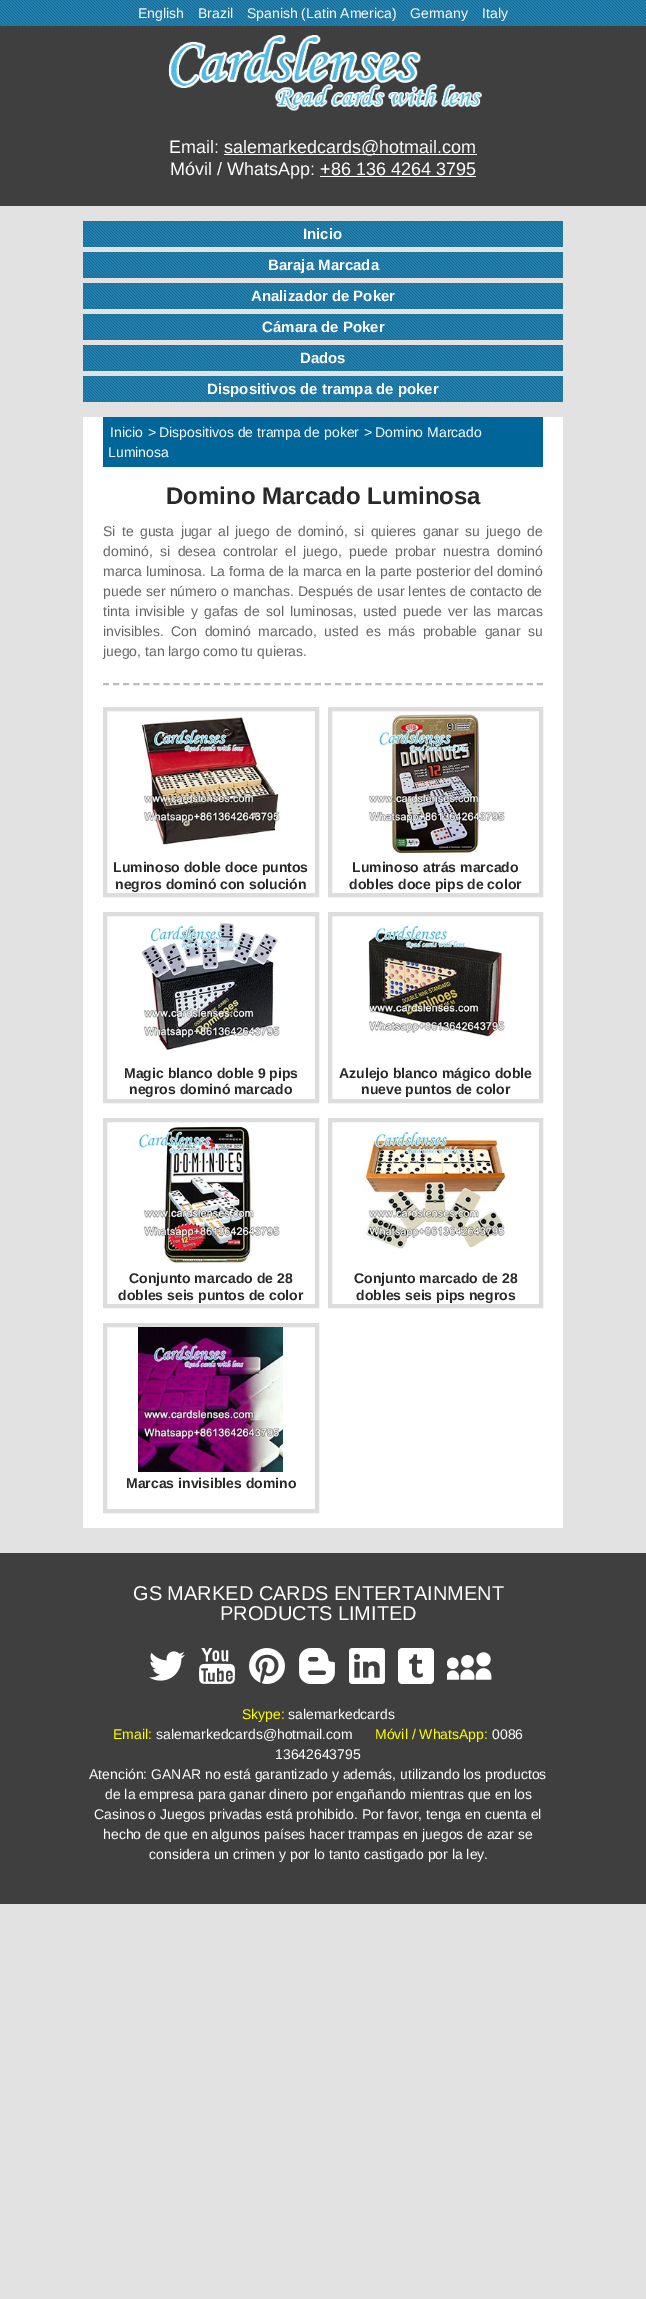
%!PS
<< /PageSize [646 2299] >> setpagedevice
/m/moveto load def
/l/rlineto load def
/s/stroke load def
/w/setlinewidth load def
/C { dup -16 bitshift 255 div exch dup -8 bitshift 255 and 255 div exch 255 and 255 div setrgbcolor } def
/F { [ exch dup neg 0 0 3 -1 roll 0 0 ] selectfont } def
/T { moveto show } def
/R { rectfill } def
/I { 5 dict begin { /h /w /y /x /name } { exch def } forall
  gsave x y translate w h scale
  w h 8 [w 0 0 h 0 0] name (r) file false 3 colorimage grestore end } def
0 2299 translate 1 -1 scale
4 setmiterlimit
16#E2E2E2 C
0 0 646 2299 R
16#006699 C
0 0 646 26 R
(1.rgb) 0 0 646 26 I
/LiberationSans-Regular 14 F
16#FFFFFF C
(English) 138 18 T
(Brazil) 198 18 T
(Spanish \(Latin America\)) 247 18 T
(Germany) 410 18 T
(Italy) 482 18 T
16#3F3F3F C
0 26 646 180 R
(2.rgb) 168 35 314 76 I
/LiberationSans-Regular 18 F
16#FFFFFF C
(Email:) 169 153 T
224 154 253 1 R
(salemarkedcards@hotmail.com) 224 153 T
(Móvil / WhatsApp: +86 136 4264 3795) 170 175 T
320 176 156 1 R
16#006699 C
83 221 480 26 R
(3.rgb) 83 221 480 26 I
/LiberationSans-Bold 15 F
16#FFFFFF C
(Inicio) 303 239 T
16#006699 C
83 252 480 26 R
(3.rgb) 83 252 480 26 I
16#FFFFFF C
(Baraja Marcada) 268 270 T
16#006699 C
83 283 480 26 R
(3.rgb) 83 283 480 26 I
16#FFFFFF C
(Analizador de Poker) 251 301 T
16#006699 C
83 314 480 26 R
(3.rgb) 83 314 480 26 I
16#FFFFFF C
(Cámara de Poker) 262 332 T
16#006699 C
83 345 480 26 R
(3.rgb) 83 345 480 26 I
16#FFFFFF C
(Dados) 300 363 T
16#006699 C
83 376 480 26 R
(3.rgb) 83 376 480 26 I
16#FFFFFF C
(Dispositivos de trampa de poker) 207 394 T
83 417 480 1111 R
16#006699 C
103 417 440 50 R
/LiberationSans-Regular 14 F
16#FFFFFF C
(Inicio) 110 437 T
148 437 m -2 0 (>) ashow
(Dispositivos de trampa de poker) 159 437 T
364 437 m -2 0 (>) ashow
(Domino Marcado) 375 437 T
(Luminosa) 108 457 T
/LiberationSans-Bold 24 F
16#292929 C
(Domino Marcado Luminosa) 166 504 T
/LiberationSans-Regular 14 F
16#666666 C
103 536 m 2.5 0 32 (Si te gusta jugar al juego de dominó, si quieres ganar su juego de) widthshow
103 556 m 3.5 0 32 (dominó, si desea controlar el juego, puede probar nuestra dominó) widthshow
(marca luminosa. La forma de la marca en la parte posterior del dominó) 103 576 T
103 596 m .25 0 32 (puede ser número o manchas. Después de usar lentes de contacto de) widthshow
103 616 m 2.1 0 32 (tinta invisible y gafas de sol luminosas, usted puede ver las marcas) widthshow
103 636 m 3.75 0 32 (invisibles. Con dominó marcado, usted es más probable ganar su) widthshow
(juego, tan largo como tu quieras.) 103 656 T
16#BDBDBD C
2 w
[6 4.09] 0 setdash
103 684 m 440 0 l s
16#DDDDDD C
4 w
[] 0 setdash
105 709 212 186 rectstroke
(4.rgb) 138 716 142 129 I
/LiberationSans-Bold 14 F
16#292929 C
(Luminoso doble doce puntos) 113 872 T
(negros dominó con solución) 115 889 T
16#DDDDDD C
330 709 211 186 rectstroke
(5.rgb) 368 714 137 142 I
16#292929 C
(Luminoso atrás marcado) 352 872 T
(dobles doce pips de color) 349 889 T
16#DDDDDD C
105 914 212 187 rectstroke
(6.rgb) 141 922 139 129 I
16#292929 C
(Magic blanco doble 9 pips) 124 1078 T
(negros dominó marcado) 129 1094 T
16#DDDDDD C
330 914 211 187 rectstroke
(7.rgb) 368 922 137 117 I
16#292929 C
(Azulejo blanco mágico doble) 339 1078 T
(nueve puntos de color) 361 1094 T
16#DDDDDD C
105 1120 212 186 rectstroke
(8.rgb) 138 1125 142 141 I
16#292929 C
(Conjunto marcado de 28) 129 1283 T
(dobles seis puntos de color) 118 1300 T
16#DDDDDD C
330 1120 211 186 rectstroke
(9.rgb) 363 1128 144 122 I
16#292929 C
(Conjunto marcado de 28) 354 1283 T
(dobles seis pips negros) 356 1300 T
16#DDDDDD C
105 1325 212 186 rectstroke
(10.rgb) 138 1327 145 145 I
16#292929 C
(Marcas invisibles domino) 126 1488 T
16#3F3F3F C
0 1553 646 351 R
/LiberationSans-Regular 20 F
16#FFFFFF C
(GS MARKED CARDS ENTERTAINMENT) 133 1600 T
(PRODUCTS LIMITED) 220 1620 T
(11.rgb) 149 1651 36 30 I
(12.rgb) 199 1648 36 36 I
(13.rgb) 249 1648 36 36 I
(14.rgb) 299 1648 36 36 I
(15.rgb) 349 1648 36 36 I
(16.rgb) 398 1648 36 36 I
(17.rgb) 447 1652 45 28 I
/LiberationSans-Regular 14 F
16#FFFF00 C
(Skype:) 242 1719 T
16#FFFFFF C
(salemarkedcards) 288 1719 T
16#FFFF00 C
(Email:) 113 1739 T
16#FFFFFF C
(salemarkedcards@hotmail.com) 156 1739 T
16#FFFF00 C
(Móvil / WhatsApp:) 375 1739 T
16#FFFFFF C
(0086) 492 1739 T
(13642643795) 275 1759 T
(Atención: GANAR no está garantizado y además, utilizando los productos) 89 1779 T
(de la empresa para ganar dinero por engañando mientras que en los) 105 1799 T
(Casinos o Juegos privadas está prohibido. Por favor, tenga en cuenta el) 94 1819 T
(hecho de que en algunos países hacer trampas en juegos de azar se) 103 1839 T
(considera un crimen y por lo tanto castigado por la ley.) 149 1859 T
showpage
